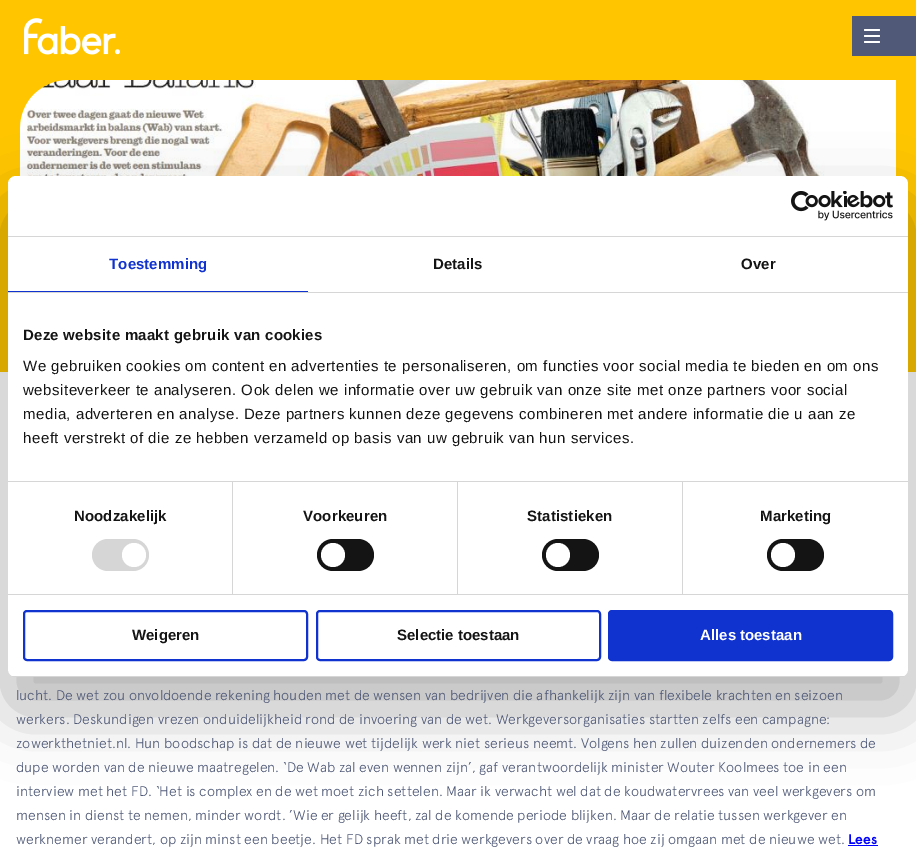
%!PS
<< /PageSize [916 852] /PageUsesTransparency true >> setpagedevice
/m/moveto load def
/f/fill load def
/s/stroke load def
/q/gsave load def
/Q_/grestore load def
/w/setlinewidth load def
/C { dup -16 bitshift 255 div exch dup -8 bitshift 255 and 255 div exch 255 and 255 div setrgbcolor } def
/F { [ exch dup neg 0 0 3 -1 roll 0 0 ] selectfont } def
/T { moveto show } def
/R { rectfill } def
/A { dup .setfillconstantalpha .setstrokeconstantalpha } def
/O { newpath 0 360 arc closepath } def
/Q { 5 dict begin { /r /h /w /y /x } { exch def } forall
  x r add y moveto x w add y 2 copy h add r arct x w add y h add x 1 index r arct
  x y h add x y r arct x y 2 copy exch w add exch r arct closepath end } def
/S { 12 dict begin { /a /b /q /h /w /y /x } { exch def } forall gsave /was 0 def
  9 -2 -9 { dup b mul 4 div /e exch def 1 sub .425 mul 2.718 exch exp 1 add a .99 .min exch div /now exch def
    1 1 now sub 1 was sub div sub A /was now def
    w h .min e 2 mul add 0 gt { x e sub y e sub w e 2 mul add h e 2 mul add
      q e add b .6 mul add w h .min 2 div e add .min 0 .max Q fill } if } for grestore end } def
/I { 5 dict begin { /h /w /y /x /name } { exch def } forall
  gsave x y translate w h scale
  w h 8 [w 0 0 h 0 0] name (r) file false 3 colorimage grestore end } def
0 .pushpdf14devicefilter
0 852 translate 1 -1 scale
4 setmiterlimit
16#FFFFFF C
0 0 916 852 R
16#FFC600 C
0 0 916 372 R
(1.rgb) 24 18 96 37 I
16#505A78 C
852 16 64 40 R
16#FFFFFF C
864 29 16 2 1 Q f
864 35 16 2 1 Q f
864 41 16 2 1 Q f
(3.rgb) 20 80 876 96 I
16#000000 C
8 208 900 501 8 34 .3 S
16#FFFFFF C
8 176 900 501 8 Q f
16#D6D6D6 C
8 236 900 1 R
(2.rgb) 791 191 102 30 I
8 292 900 1 R
16#1032CF C
8 291 300 1 R
/LiberationSans-Bold 15 F
109 269 m .1 0 (Toestemming) ashow
16#141414 C
433 269 m .1 0 (Details) ashow
741 269 m .1 0 (Over) ashow
16#D6D6D6 C
8 481 900 1 R
16#141414 C
23 340 m .25 0 (Deze website maakt gebruik van cookies) ashow
/LiberationSans-Regular 15 F
23 371 m .5 0 (We gebruiken cookies om content en advertenties te personaliseren, om functies voor social media te bieden en om ons) ashow
23 395 m .5 0 (websiteverkeer te analyseren. Ook delen we informatie over uw gebruik van onze site met onze partners voor social) ashow
23 419 m .5 0 (media, adverteren en analyse. Deze partners kunnen deze gegevens combineren met andere informatie die u aan ze) ashow
23 443 m .5 0 (heeft verstrekt of die ze hebben verzameld op basis van uw gebruik van hun services.) ashow
16#D6D6D6 C
8 594 900 1 R
232 482 1 112 R
/LiberationSans-Bold 15 F
16#141414 C
74 521 m .1 0 (Noodzakelijk) ashow
16#D6D6D6 C
92 539 57 32 16 Q f
16#FFFFFF C
134 555 12 O f
16#D6D6D6 C
457 482 1 112 R
16#141414 C
303 521 m .1 0 (Voorkeuren) ashow
317 539 57 32 16 Q f
16#FFFFFF C
333 555 12 O f
16#D6D6D6 C
682 482 1 112 R
16#141414 C
527 521 m .1 0 (Statistieken) ashow
542 539 57 32 16 Q f
16#FFFFFF C
558 555 12 O f
16#141414 C
760 521 m .1 0 (Marketing) ashow
767 539 57 32 16 Q f
16#FFFFFF C
783 555 12 O f
q
8 176 900 501 8 Q clip newpath
16#D6D6D6 C
8 676 900 1 R
Q_
16#1032CF C
2 w
24 611 283 49 3 Q s
16#141414 C
(Weigeren) 132 640 T
16#1032CF C
317 611 283 49 3 Q s
16#141414 C
(Selectie toestaan) 397 640 T
16#1032CF C
609 611 283 49 3 Q q f Q_
s
16#FFFFFF C
(Alles toestaan) 700 640 T
/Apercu-Light 14 F
16#505A78 C
(lucht. De wet zou onvoldoende rekening houden met de wensen van bedrijven die afhankelijk zijn van flexibele krachten en seizoen) 16 700 T
(werkers. Deskundigen vrezen onduidelijkheid rond de invoering van de wet. Werkgeversorganisaties startten zelfs een campagne:) 16 724 T
(zowerkthetniet.nl. Hun boodschap is dat de nieuwe wet tijdelijk werk niet serieus neemt. Volgens hen zullen duizenden ondernemers de) 16 748 T
(dupe worden van de nieuwe maatregelen. ‘De Wab zal even wennen zijn’, gaf verantwoordelijk minister Wouter Koolmees toe in een) 16 772 T
(interview met het FD. ‘Het is complex en de wet moet zich settelen. Maar ik verwacht wel dat de koudwatervrees van veel werkgevers om) 16 796 T
(mensen in dienst te nemen, minder wordt. ’Wie er gelijk heeft, zal de komende periode blijken. Maar de relatie tussen werkgever en) 16 820 T
(werknemer verandert, op zijn minst een beetje. Het FD sprak met drie werkgevers over de vraag hoe zij omgaan met de nieuwe wet.) 16 844 T
/Apercu-Bold 14 F
16#0000FF C
(Lees) 848 844 T
848 845 30 1 R
.poppdf14devicefilter showpage
